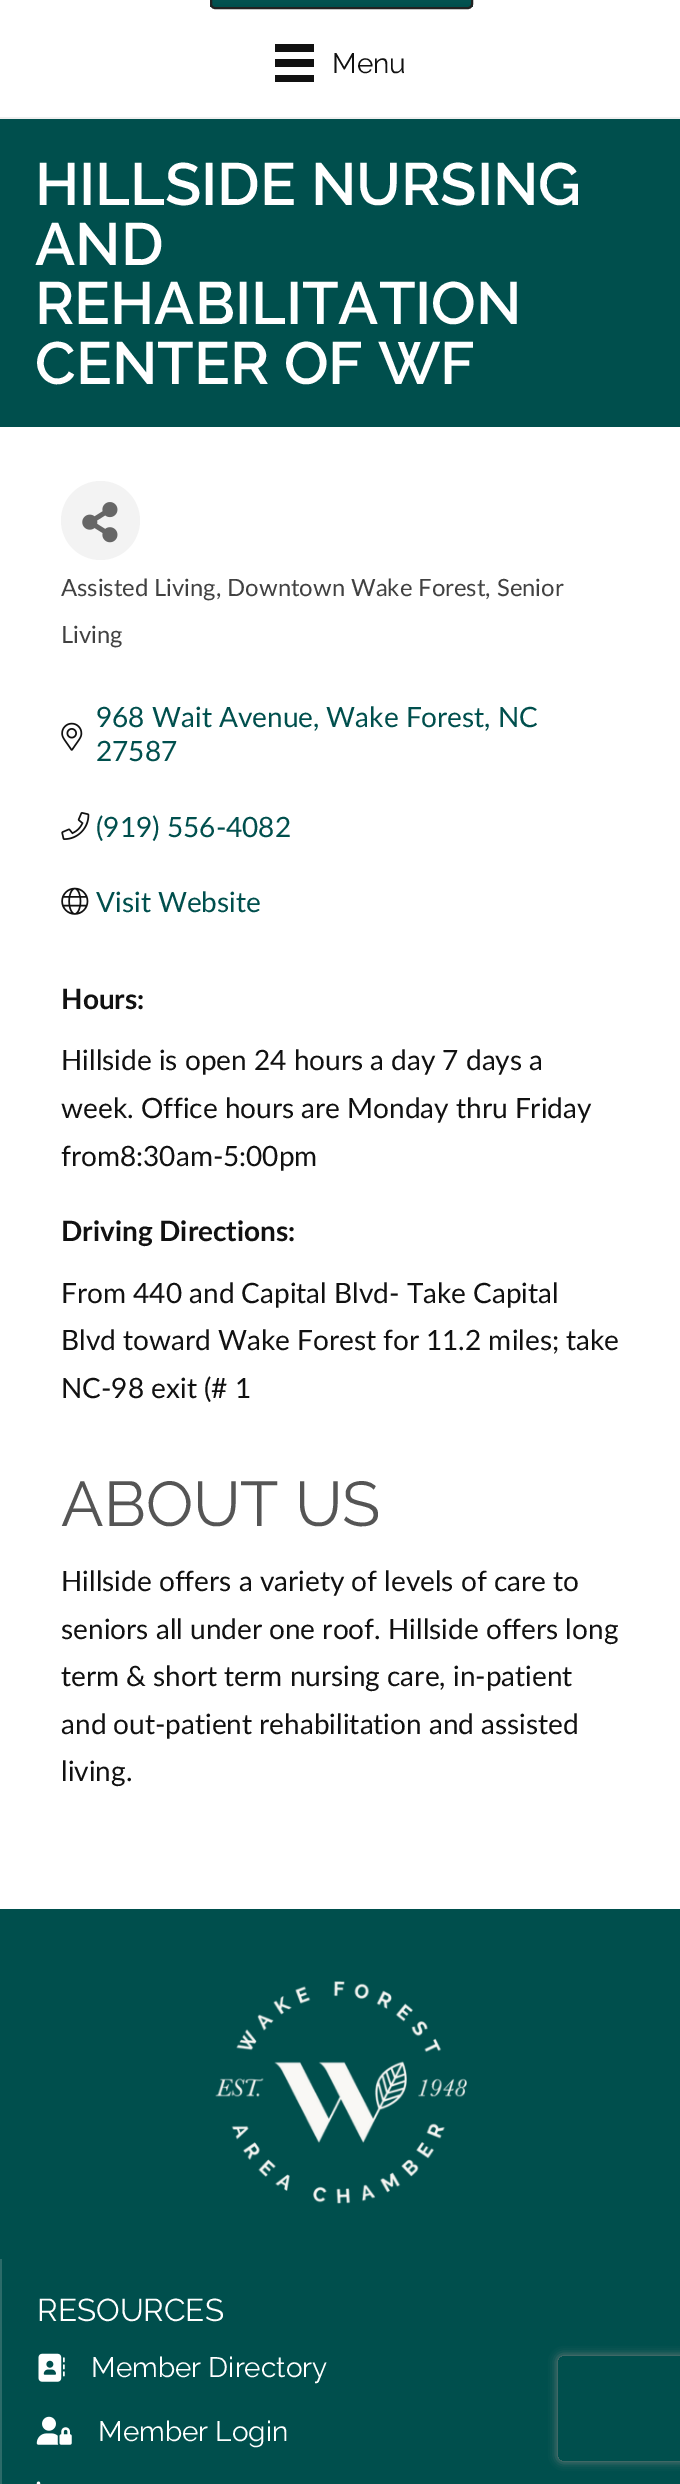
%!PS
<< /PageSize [680 2484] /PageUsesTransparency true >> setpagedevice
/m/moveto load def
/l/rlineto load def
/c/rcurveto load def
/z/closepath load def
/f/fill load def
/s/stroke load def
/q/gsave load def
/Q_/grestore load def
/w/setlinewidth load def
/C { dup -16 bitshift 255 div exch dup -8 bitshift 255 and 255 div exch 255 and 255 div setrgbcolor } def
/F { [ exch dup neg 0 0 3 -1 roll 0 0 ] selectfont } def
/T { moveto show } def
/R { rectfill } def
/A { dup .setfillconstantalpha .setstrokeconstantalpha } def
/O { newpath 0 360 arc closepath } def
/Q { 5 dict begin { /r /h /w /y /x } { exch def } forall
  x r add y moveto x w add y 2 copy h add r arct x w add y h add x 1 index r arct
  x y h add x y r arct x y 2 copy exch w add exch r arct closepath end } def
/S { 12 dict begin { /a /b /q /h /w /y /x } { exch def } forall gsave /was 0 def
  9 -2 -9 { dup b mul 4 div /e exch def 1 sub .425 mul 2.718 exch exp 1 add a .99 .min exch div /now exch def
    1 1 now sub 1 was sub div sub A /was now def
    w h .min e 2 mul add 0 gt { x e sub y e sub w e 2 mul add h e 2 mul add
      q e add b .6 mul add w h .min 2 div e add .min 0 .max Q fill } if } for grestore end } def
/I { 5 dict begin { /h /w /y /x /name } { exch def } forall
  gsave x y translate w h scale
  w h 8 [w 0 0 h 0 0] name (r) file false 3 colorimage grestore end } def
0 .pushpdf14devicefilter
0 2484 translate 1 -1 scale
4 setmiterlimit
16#FFFFFF C
0 0 680 2484 R
16#EFEFEF C
0 117 680 2 R
q
210 -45 263 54 5 Q clip newpath
q 210 0 m 263 0 l 0 7 l -263 0 l z clip newpath
<< /ShadingType 2 /ColorSpace /DeviceRGB /Coords [341 -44 341 7] /Extend [true true] /Function << /FunctionType 2 /Domain [0 1] /C0 [.118 .427 .42] /C1 [0 .31 .302] /N 1 >> >> shfill Q_
Q_
16#222222 C
2 w
211 -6 261 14 4 Q s
16#111111 C
275 44 39 8 R
275 59 39 8 R
275 75 39 7 R
/Raleway-Regular 28 F
(Menu) 332 73 T
16#004F4D C
0 119 680 308 R
/Raleway-SemiBold 59.5 F
16#FFFFFF C
(HILLSIDE NURSING) 35 205 T
(AND) 35 265 T
(REHABILITATION) 35 324 T
(CENTER OF WF) 35 384 T
16#F3F3F3 C
100.5 520.5 39.5 O f
(1.rgb) 82 502 36 41 I
/Lato-Regular 23.8 F
16#414141 C
(Assisted Living, Downtown Wake Forest, Senior) 61 596 T
(Living) 61 643 T
/Lato-Regular 28 F
16#004F4D C
(968 Wait Avenue, Wake Forest, NC) 96 727 T
(2.rgb) 61 722 22 29 I
(27587) 96 761 T
(3.rgb) 61 812 29 28 I
(\(919\) 556-4082) 96 837 T
(4.rgb) 61 887 28 28 I
(Visit Website) 96 912 T
/Lato-Bold 28 F
16#111111 C
(Hours:) 61 1009 T
/Lato-Regular 28 F
(Hillside is open 24 hours a day 7 days a) 61 1070 T
(week. Office hours are Monday thru Friday) 61 1118 T
(from8:30am-5:00pm) 61 1166 T
/Lato-Bold 28 F
(Driving Directions:) 61 1241 T
/Lato-Regular 28 F
(From 440 and Capital Blvd- Take Capital) 61 1303 T
(Blvd toward Wake Forest for 11.2 miles; take) 61 1350 T
(NC-98 exit \(# 1) 61 1398 T
/Raleway-Regular 63 F
16#555555 C
(ABOUT US) 61 1526 T
/Lato-Regular 28 F
16#111111 C
(Hillside offers a variety of levels of care to) 61 1591 T
(seniors all under one roof. Hillside offers long) 61 1639 T
(term & short term nursing care, in-patient) 61 1686 T
(and out-patient rehabilitation and assisted) 61 1734 T
(living.) 61 1781 T
16#004F4D C
0 1909 680 575 R
(5.rgb) 215 1981 252 223 I
16#2C6B69 C
0 2259 2 225 R
/Raleway-Regular 31.5 F
16#FFFFFF C
(RESOURCES) 37 2321 T
(6.rgb) 38 2353 27 29 I
/Raleway-Regular 28 F
(Member Directory) 91 2377 T
(7.rgb) 36 2416 36 29 I
(Member Login) 98 2441 T
(8.rgb) 36 2481 5 3 I
q
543 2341 m 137 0 l 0 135 l -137 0 l z 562 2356 m 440 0 l 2 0 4 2 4 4 c 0 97 l 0 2 -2 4 -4 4 c -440 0 l -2 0 -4 -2 -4 -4 c 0 -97 l 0 -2 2 -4 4 -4 c z eoclip newpath
16#808080 C
558 2356 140 105 4 4.5 1 S
Q_
.poppdf14devicefilter showpage
